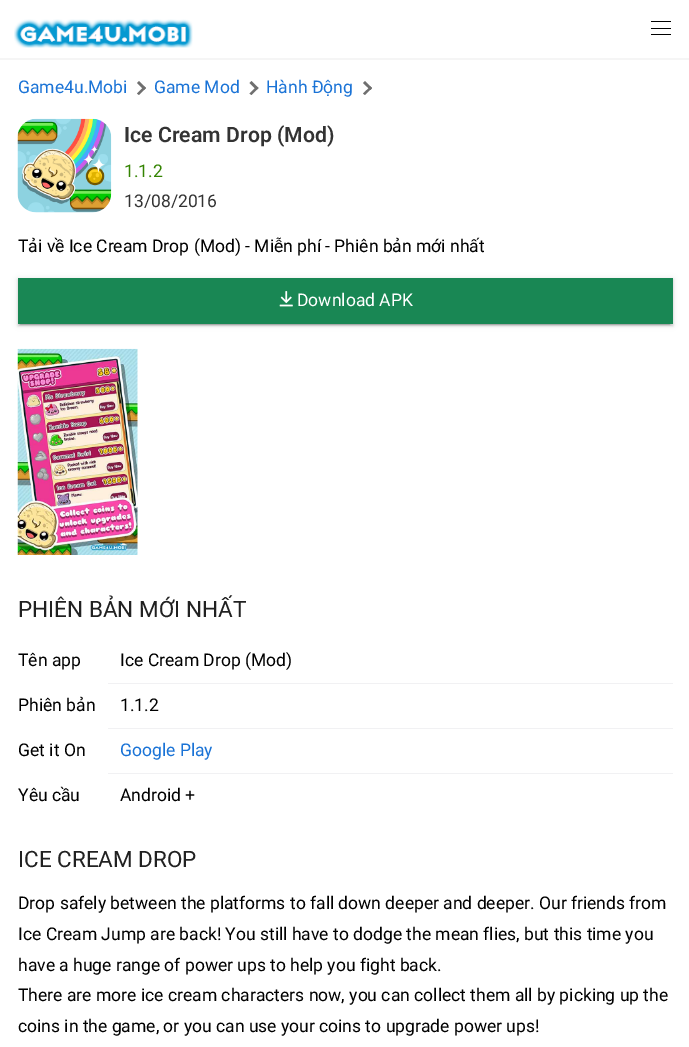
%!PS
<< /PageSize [689 1047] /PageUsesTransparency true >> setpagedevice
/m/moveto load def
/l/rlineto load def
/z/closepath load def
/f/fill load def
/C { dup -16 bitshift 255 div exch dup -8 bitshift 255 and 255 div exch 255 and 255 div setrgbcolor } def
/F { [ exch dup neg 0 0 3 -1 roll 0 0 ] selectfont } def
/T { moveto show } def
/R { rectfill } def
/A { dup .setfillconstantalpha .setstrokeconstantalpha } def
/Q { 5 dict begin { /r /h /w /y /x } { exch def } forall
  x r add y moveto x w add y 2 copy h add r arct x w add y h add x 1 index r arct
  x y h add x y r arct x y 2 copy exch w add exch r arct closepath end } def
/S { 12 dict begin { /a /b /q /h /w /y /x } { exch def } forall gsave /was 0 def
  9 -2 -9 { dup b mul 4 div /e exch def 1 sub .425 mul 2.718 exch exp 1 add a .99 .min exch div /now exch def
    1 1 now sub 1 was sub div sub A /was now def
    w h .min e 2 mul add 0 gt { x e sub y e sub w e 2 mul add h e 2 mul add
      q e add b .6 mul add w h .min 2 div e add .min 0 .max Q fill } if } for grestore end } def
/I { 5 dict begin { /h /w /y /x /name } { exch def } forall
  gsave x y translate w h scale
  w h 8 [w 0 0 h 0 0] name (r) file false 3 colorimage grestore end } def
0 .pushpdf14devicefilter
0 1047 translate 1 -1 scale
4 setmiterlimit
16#FFFFFF C
0 0 689 1047 R
16#F5F5F5 C
0 58 689 2 R
(1.rgb) 14 19 179 29 I
16#000000 C
651 21 20 1 R
651 28 20 1 R
651 34 20 1 R
/Roboto-Regular 17.5 F
16#1A73D6 C
(Game4u.Mobi) 18 93 T
16#6F6F6F C
137 83 m 2 -2 l 7 7 l -2 2 l z f
137 93.5 m 7 -7 l 2 1.5 l -7 7 l z f
16#1A73D6 C
(Game Mod) 154 93 T
16#6F6F6F C
249.5 83 m 2 -2 l 7 7 l -2 2 l z f
249.5 93.5 m 7 -7 l 2 1.5 l -7 7 l z f
16#1A73D6 C
(Hành Động) 266 93 T
16#6F6F6F C
363 83 m 2 -2 l 7 7 l -1.5 2 l z f
363 93.5 m 7.5 -7 l 1.5 1.5 l -7 7 l z f
(2.rgb) 17 118 95 95 I
/Roboto-SemiBold 21.25 F
16#333333 C
(Ice Cream Drop \(Mod\)) 124 142 T
/Roboto-Regular 17.5 F
16#348402 C
(1.1.2) 124 177 T
16#333333 C
(13/08/2016) 124 207 T
16#000000 C
(Tải về Ice Cream Drop \(Mod\) - Miễn phí - Phiên bản mới nhất) 18 252 T
18 279 655 46 0 3 .12 S
18 280 655 46 0 1 .14 S
20 284 650 41 0 .5 .2 S
16#198754 C
18 278 655 46 R
(3.rgb) 279 291 14 16 I
16#FFFFFF C
(Download APK) 297 306 T
(4.rgb) 17 348 121 207 I
/Roboto-Regular 22.5 F
16#212121 C
(PHIÊN BẢN MỚI NHẤT) 18 617 T
16#F1F1F3 C
108 683 565 1 R
/Roboto-Regular 17.5 F
16#000000 C
(Tên app) 18 666 T
(Ice Cream Drop \(Mod\)) 120 666 T
16#F1F1F3 C
108 728 565 1 R
16#000000 C
(Phiên bản) 18 711 T
(1.1.2) 120 711 T
16#F1F1F3 C
108 773 565 1 R
16#000000 C
(Get it On) 18 756 T
16#1A73D6 C
(Google Play) 120 756 T
16#000000 C
(Yêu cầu) 18 801 T
(Android +) 120 801 T
/Roboto-Regular 22.5 F
16#212121 C
(ICE CREAM DROP) 18 867 T
/Roboto-Regular 17.5 F
16#000000 C
(Drop safely between the platforms to fall down deeper and deeper. Our friends from) 18 909 T
(Ice Cream Jump are back! You still have to dodge the mean flies, but this time you) 18 940 T
(have a huge range of power ups to help you fight back.) 18 971 T
(There are more ice cream characters now, you can collect them all by picking up the) 18 1001 T
(coins in the game, or you can use your coins to upgrade power ups!) 18 1032 T
.poppdf14devicefilter showpage
